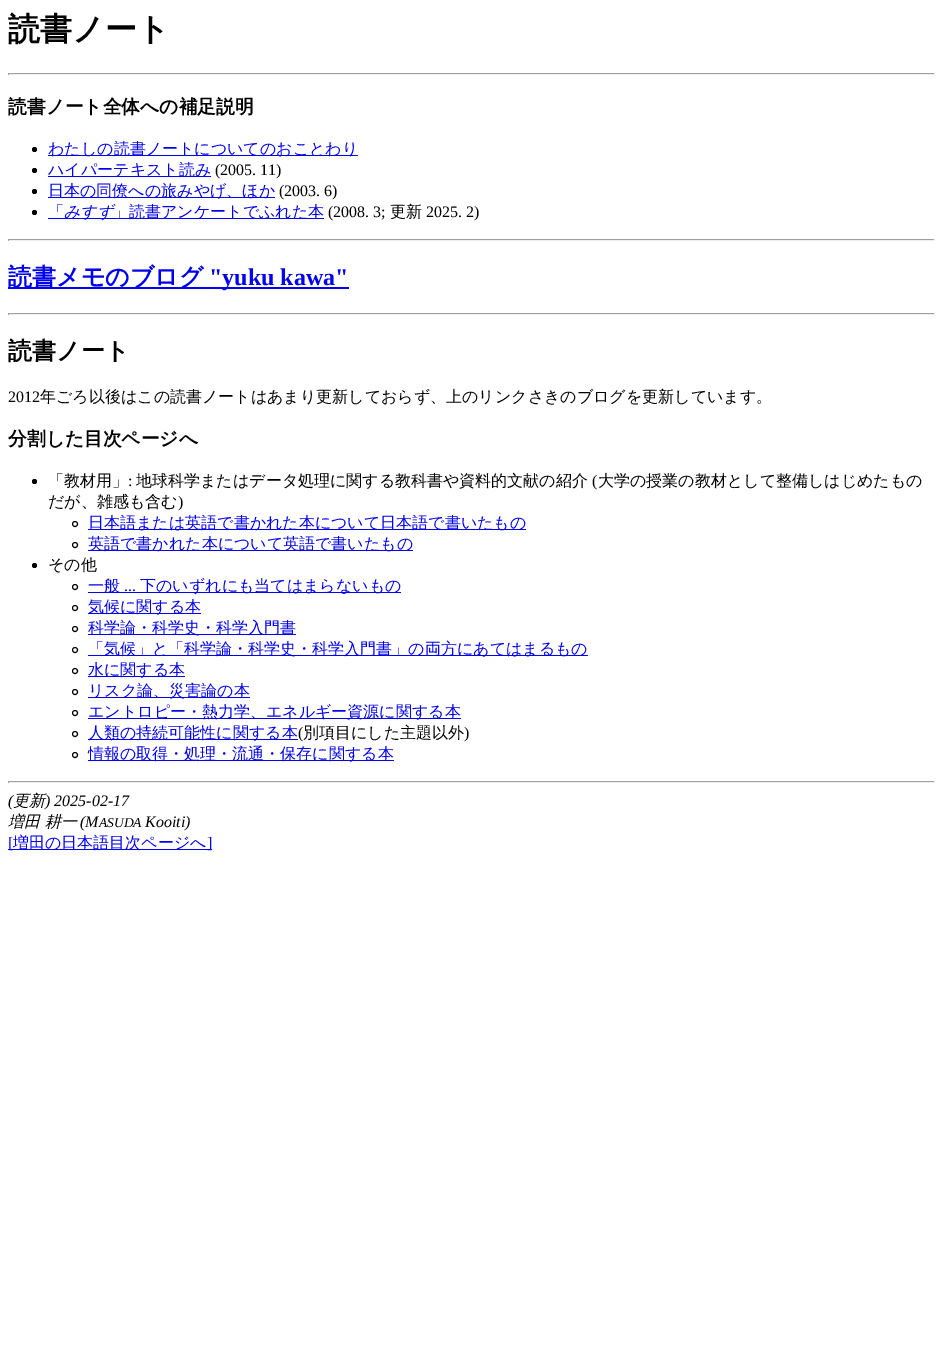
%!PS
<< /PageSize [943 1353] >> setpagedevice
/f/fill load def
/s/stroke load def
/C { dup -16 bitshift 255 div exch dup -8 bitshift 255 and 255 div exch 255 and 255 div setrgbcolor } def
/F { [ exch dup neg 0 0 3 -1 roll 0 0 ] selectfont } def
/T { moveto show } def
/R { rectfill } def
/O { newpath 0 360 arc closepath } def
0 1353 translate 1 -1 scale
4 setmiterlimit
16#FFFFFF C
0 0 943 1353 R
/WenQuanYiZenHei-Bold 32 F
16#000000 C
(読書ノート) 8 40 T
16#9F9F9F C
8 73 927 1 R
16#EEEEEE C
934 73 1 2 R
8 74 927 1 R
16#9F9F9F C
8 73 1 2 R
/WenQuanYiZenHei-Bold 18.75 F
16#000000 C
(読書ノート全体への補足説明) 8 113 T
34.5 149.5 2.5 O f
16#0000EE C
48 155 310 1 R
/WenQuanYiZenHei-Medium 16 F
(わたしの読書ノートについてのおことわり) 48 154 T
16#000000 C
34.5 170.5 2.5 O f
16#0000EE C
48 176 163 1 R
(ハイパーテキスト読み) 48 175 T
/LiberationSerif-Regular 16 F
16#000000 C
(\(2005. 11\)) 215 175 T
34.5 191.5 2.5 O f
16#0000EE C
48 197 227 1 R
/WenQuanYiZenHei-Medium 16 F
(日本の同僚への旅みやげ、ほか) 48 196 T
/LiberationSerif-Regular 16 F
16#000000 C
(\(2003. 6\)) 279 196 T
34.5 212.5 2.5 O f
/WenQuanYiZenHei-Medium 16 F
16#0000EE C
(「) 48 217 T
48 218 65 1 R
/WenQuanYiZenHei-MediumItalic 16 F
(みすず) 64 217 T
113 218 211 1 R
/WenQuanYiZenHei-Medium 16 F
(」読書アンケートでふれた本) 113 217 T
/LiberationSerif-Regular 16 F
16#000000 C
(\(2008. 3;) 328 217 T
/WenQuanYiZenHei-Medium 16 F
(更新) 390 217 T
/LiberationSerif-Regular 16 F
(2025. 2\)) 426 217 T
16#9F9F9F C
8 239 927 1 R
16#EEEEEE C
934 239 1 2 R
8 240 927 1 R
16#9F9F9F C
8 239 1 2 R
16#0000EE C
8 287 341 2 R
/WenQuanYiZenHei-Bold 24 F
(読書メモのブログ) 8 285 T
/LiberationSerif-Bold 24 F
("yuku kawa") 209 285 T
16#9F9F9F C
8 313 927 1 R
16#EEEEEE C
934 313 1 2 R
8 314 927 1 R
16#9F9F9F C
8 313 1 2 R
/WenQuanYiZenHei-Bold 24 F
16#000000 C
(読書ノート) 8 359 T
/LiberationSerif-Regular 16 F
(2012) 8 402 T
/WenQuanYiZenHei-Medium 16 F
(年ごろ以後はこの読書ノートはあまり更新しておらず、上のリンクさきのブログを更新しています。) 40 402 T
/WenQuanYiZenHei-Bold 18.75 F
(分割した目次ページへ) 8 445 T
34.5 481.5 2.5 O f
/WenQuanYiZenHei-Medium 16 F
(「教材用」) 48 486 T
/LiberationSerif-Regular 16 F
(:) 128 486 T
/WenQuanYiZenHei-Medium 16 F
(地球科学またはデータ処理に関する教科書や資料的文献の紹介) 136 486 T
/LiberationSerif-Regular 16 F
(\() 592 486 T
/WenQuanYiZenHei-Medium 16 F
(大学の授業の教材として整備しはじめたもの) 598 486 T
(だが、雑感も含む) 48 507 T
/LiberationSerif-Regular 16 F
(\)) 178 507 T
75 524 2.5 O s
16#0000EE C
88 529 438 1 R
/WenQuanYiZenHei-Medium 16 F
(日本語または英語で書かれた本について日本語で書いたもの) 88 528 T
16#000000 C
75 545 2.5 O s
16#0000EE C
88 550 325 1 R
(英語で書かれた本について英語で書いたもの) 88 549 T
16#000000 C
34.5 565.5 2.5 O f
(その他) 48 570 T
75 587 2.5 O s
16#0000EE C
88 592 313 1 R
(一般) 88 591 T
(下のいずれにも当てはまらないもの) 140 591 T
/LiberationSerif-Regular 16 F
(...) 124 591 T
16#000000 C
75 608 2.5 O s
16#0000EE C
88 613 113 1 R
/WenQuanYiZenHei-Medium 16 F
(気候に関する本) 88 612 T
16#000000 C
75 629 2.5 O s
16#0000EE C
88 634 208 1 R
(科学論・科学史・科学入門書) 88 633 T
16#000000 C
75 650 2.5 O s
16#0000EE C
88 655 500 1 R
(「気候」と「科学論・科学史・科学入門書」の両方にあてはまるもの) 88 654 T
16#000000 C
75 671 2.5 O s
16#0000EE C
88 676 97 1 R
(水に関する本) 88 675 T
16#000000 C
75 692 2.5 O s
16#0000EE C
88 697 162 1 R
(リスク論、災害論の本) 88 696 T
16#000000 C
75 713 2.5 O s
16#0000EE C
88 718 373 1 R
(エントロピー・熱力学、エネルギー資源に関する本) 88 717 T
16#000000 C
75 734 2.5 O s
16#0000EE C
88 739 210 1 R
(人類の持続可能性に関する本) 88 738 T
/LiberationSerif-Regular 16 F
16#000000 C
(\() 298 738 T
/WenQuanYiZenHei-Medium 16 F
(別項目にした主題以外) 303 738 T
/LiberationSerif-Regular 16 F
(\)) 464 738 T
75 755 2.5 O s
16#0000EE C
88 760 306 1 R
/WenQuanYiZenHei-Medium 16 F
(情報の取得・処理・流通・保存に関する本) 88 759 T
16#9F9F9F C
8 781 927 1 R
16#EEEEEE C
934 781 1 2 R
8 782 927 1 R
16#9F9F9F C
8 781 1 2 R
/LiberationSerif-Italic 16 F
16#000000 C
(\() 8 806 T
/WenQuanYiZenHei-MediumItalic 16 F
(更新) 13 806 T
/LiberationSerif-Italic 16 F
(\) 2025-02-17) 45 806 T
/WenQuanYiZenHei-MediumItalic 16 F
(増田 耕一) 8 827 T
/LiberationSerif-Italic 16 F
(\(M) 80 827 T
/LiberationSerif-Italic 13.5 F
(ASUDA) 99 827 T
/LiberationSerif-Italic 16 F
(Kooiti\)) 145 827 T
16#0000EE C
8 849 204 1 R
/LiberationSerif-Regular 16 F
([) 8 848 T
/WenQuanYiZenHei-Medium 16 F
(増田の日本語目次ページへ) 13 848 T
/LiberationSerif-Regular 16 F
(]) 207 848 T
showpage
